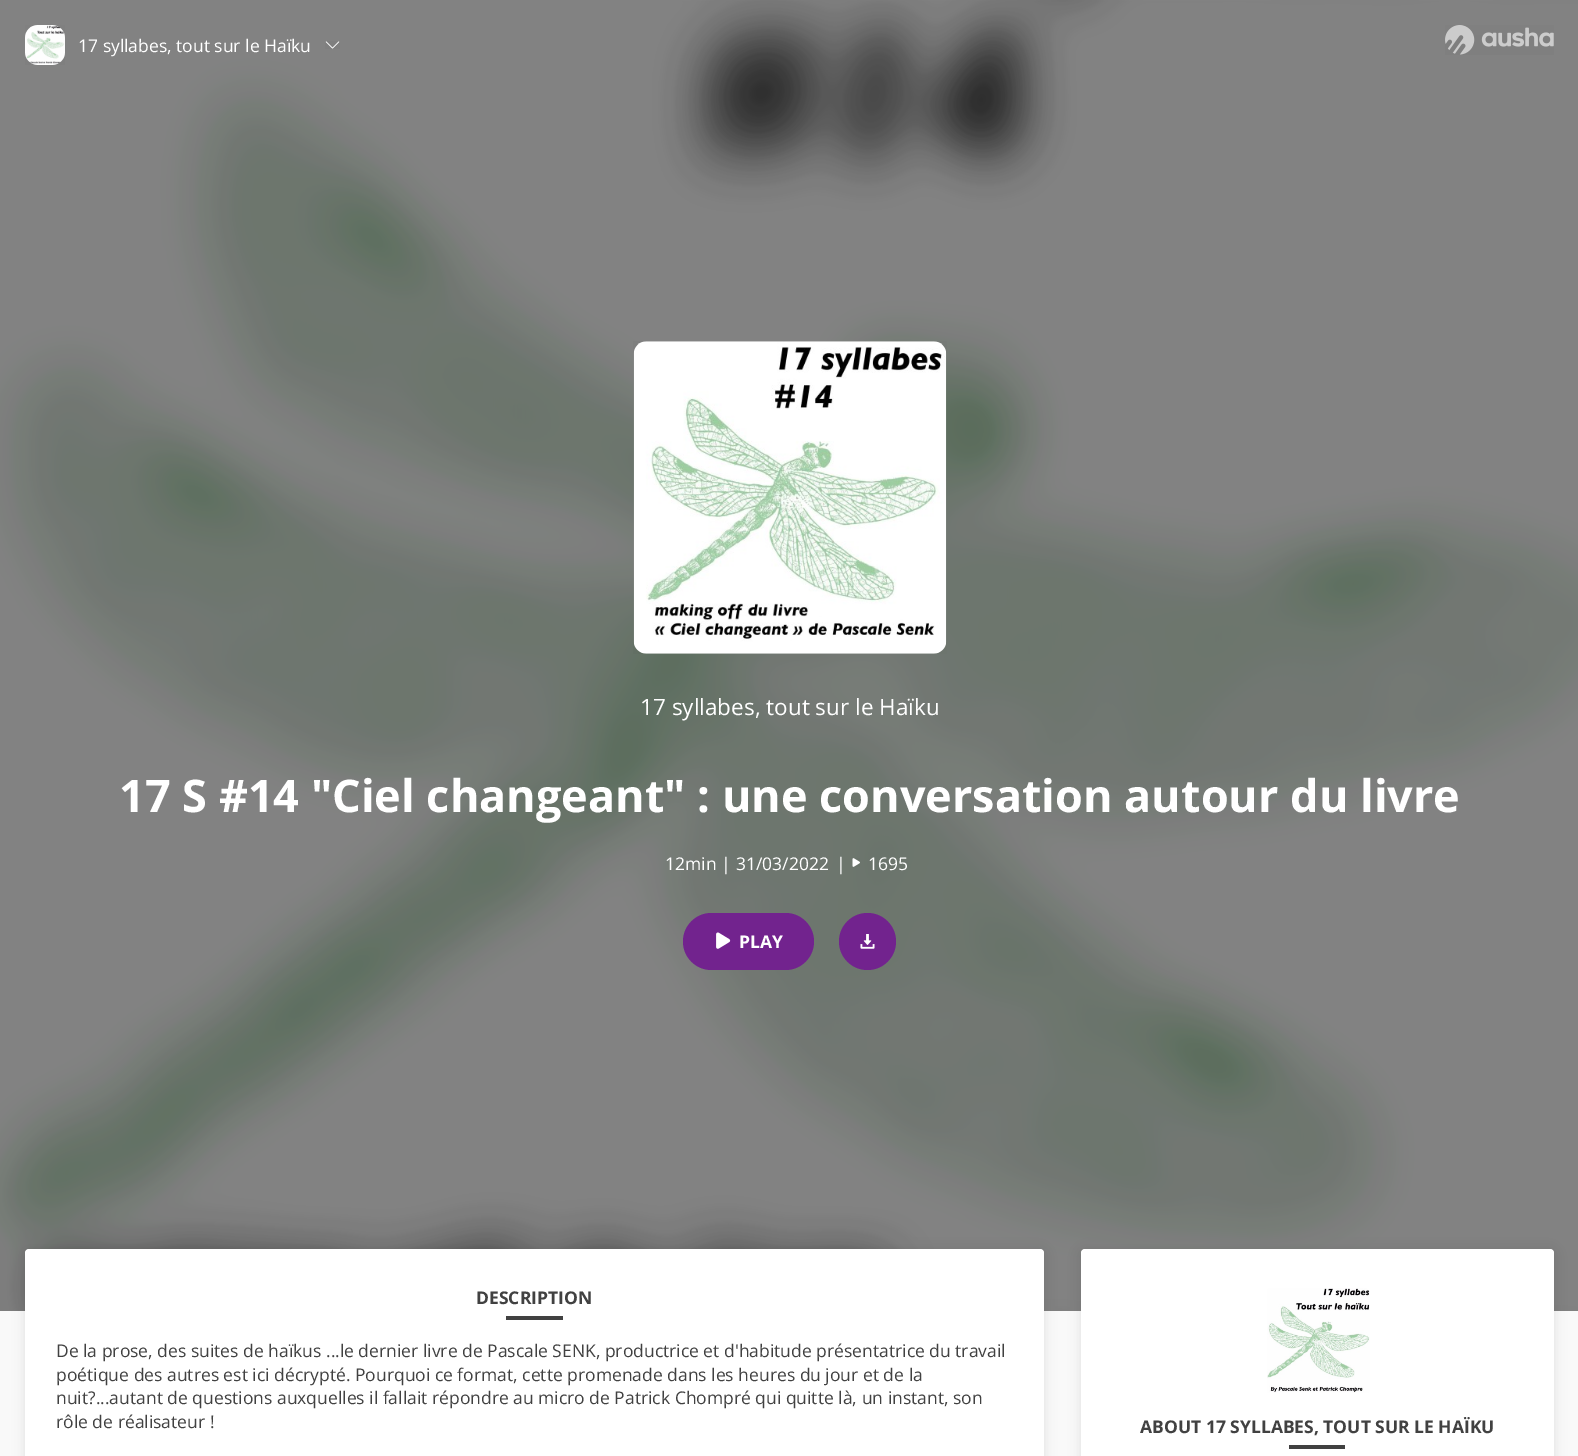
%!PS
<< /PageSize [1578 1456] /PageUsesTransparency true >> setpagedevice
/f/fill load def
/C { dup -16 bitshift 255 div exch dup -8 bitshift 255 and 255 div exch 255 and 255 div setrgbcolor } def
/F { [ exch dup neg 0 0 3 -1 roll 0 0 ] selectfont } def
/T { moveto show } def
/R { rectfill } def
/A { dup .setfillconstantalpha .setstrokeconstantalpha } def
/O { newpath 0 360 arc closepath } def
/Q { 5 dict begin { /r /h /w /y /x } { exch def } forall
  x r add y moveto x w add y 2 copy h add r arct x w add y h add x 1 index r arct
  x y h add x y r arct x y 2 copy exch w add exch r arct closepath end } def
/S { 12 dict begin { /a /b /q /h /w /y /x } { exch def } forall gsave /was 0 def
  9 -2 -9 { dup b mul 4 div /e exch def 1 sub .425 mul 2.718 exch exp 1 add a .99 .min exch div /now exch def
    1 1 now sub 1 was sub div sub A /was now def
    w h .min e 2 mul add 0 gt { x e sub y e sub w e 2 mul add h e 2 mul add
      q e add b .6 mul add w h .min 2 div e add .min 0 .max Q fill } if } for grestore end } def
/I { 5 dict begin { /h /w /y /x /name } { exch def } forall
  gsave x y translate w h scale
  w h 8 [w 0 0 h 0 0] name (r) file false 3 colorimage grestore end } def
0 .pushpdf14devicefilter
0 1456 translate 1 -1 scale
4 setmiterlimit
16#FFFFFF C
0 0 1578 1456 R
(1.rgb) 0 0 1578 1311 I
16#000000 C
-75 -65 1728 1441 0 25 .5 S
(2.rgb) 25 25 40 40 I
/OpenSans-Regular 17.5 F
16#FFFFFF C
(17 syllabes, tout sur le Haïku) 78 52 T
(3.rgb) 325 41 15 8 I
(4.rgb) 1445 25 109 30 I
(5.rgb) 633 341 314 313 I
/OpenSans-Regular 22.5 F
(17 syllabes, tout sur le Haïku) 640 715 T
/OpenSans-Bold 45 F
(17 S #14 "Ciel changeant" : une conversation autour du livre) 119 812 T
/OpenSans-Regular 17.5 F
(12min |) 665 870 T
(31/03/2022) 736 870 T
(|) 836 870 T
(6.rgb) 852 858 8 9 I
(1695) 868 870 T
16#72238E C
683 913 131 57 28.5 Q f
(7.rgb) 716 932 15 17 I
/OpenSans-Bold 17.5 F
16#FFFFFF C
(PLAY) 739 948 T
16#72238E C
867.5 941.5 28.5 O f
(8.rgb) 860 934 15 15 I
16#F9F9F9 C
0 1311 1578 145 R
16#000000 C
25 1251 1019 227 4 6 .1 S
16#FFFFFF C
25 1249 1019 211 4 Q f
16#414141 C
(DESCRIPTION) 476 1304 T
506 1316 57 4 R
/OpenSans-Regular 17.5 F
(De la prose, des suites de haïkus ...le dernier livre de Pascale SENK, productrice et d'habitude présentatrice du travail) 56 1357 T
(poétique des autres est ici décrypté. Pourquoi ce format, cette promenade dans les heures du jour et de la) 56 1381 T
(nuit?...autant de questions auxquelles il fallait répondre au micro de Patrick Chompré qui quitte là, un instant, son) 56 1404 T
(rôle de réalisateur !) 56 1428 T
16#000000 C
1081 1251 473 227 4 6 .1 S
16#FFFFFF C
1081 1249 473 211 4 Q f
(9.rgb) 1267 1288 103 105 I
/OpenSans-Bold 17.5 F
16#414141 C
(ABOUT 17 SYLLABES, TOUT SUR LE HAÏKU) 1140 1433 T
1289 1445 56 4 R
.poppdf14devicefilter showpage
